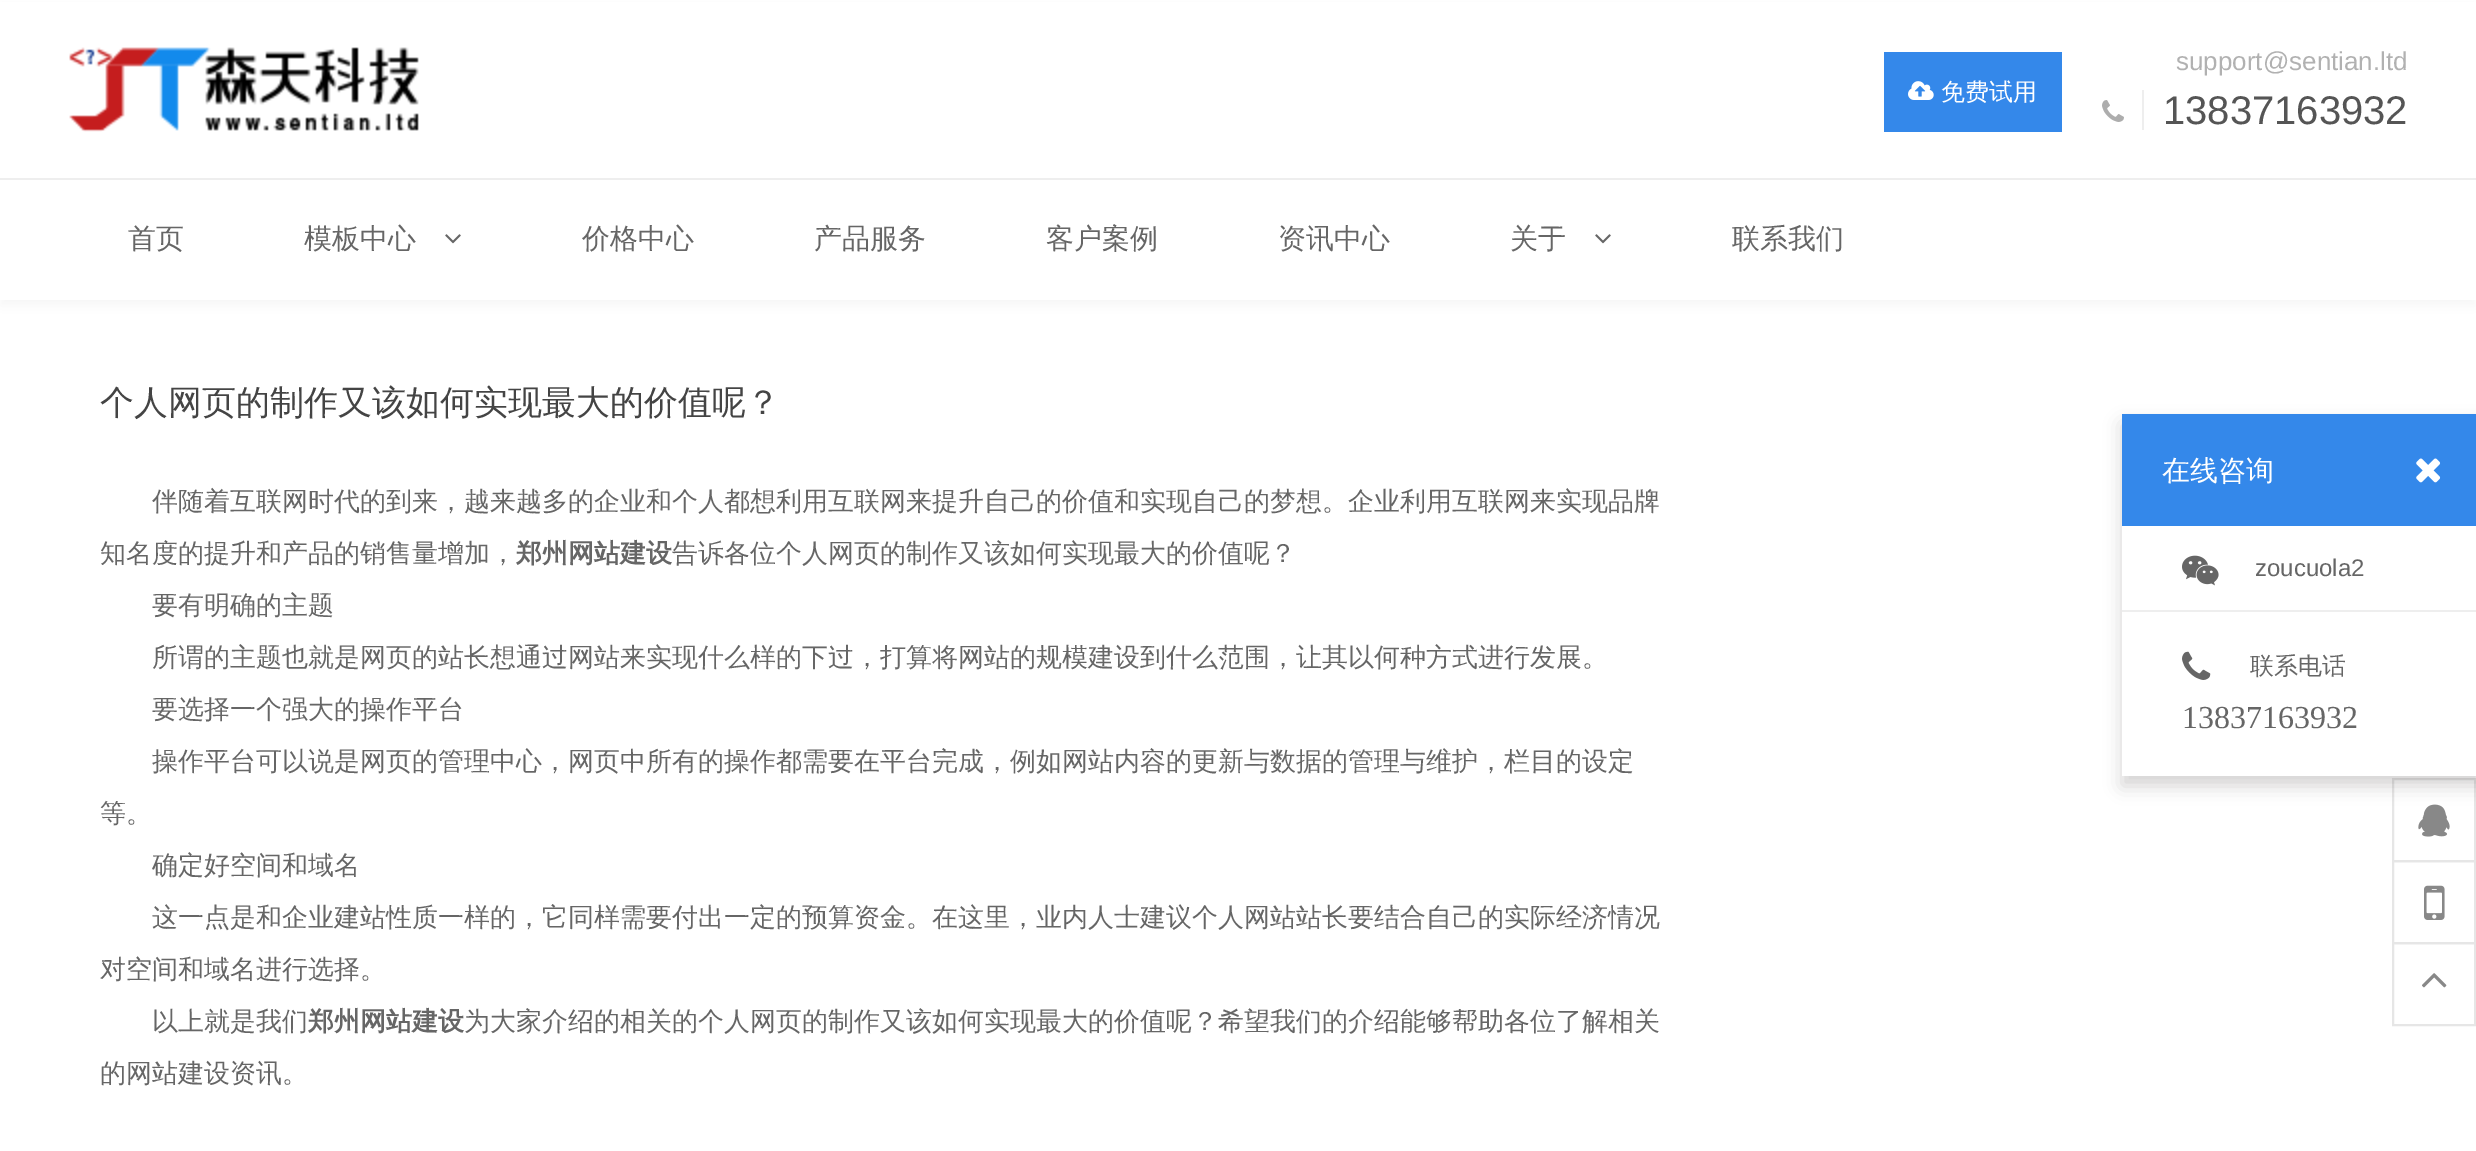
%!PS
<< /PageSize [2476 1151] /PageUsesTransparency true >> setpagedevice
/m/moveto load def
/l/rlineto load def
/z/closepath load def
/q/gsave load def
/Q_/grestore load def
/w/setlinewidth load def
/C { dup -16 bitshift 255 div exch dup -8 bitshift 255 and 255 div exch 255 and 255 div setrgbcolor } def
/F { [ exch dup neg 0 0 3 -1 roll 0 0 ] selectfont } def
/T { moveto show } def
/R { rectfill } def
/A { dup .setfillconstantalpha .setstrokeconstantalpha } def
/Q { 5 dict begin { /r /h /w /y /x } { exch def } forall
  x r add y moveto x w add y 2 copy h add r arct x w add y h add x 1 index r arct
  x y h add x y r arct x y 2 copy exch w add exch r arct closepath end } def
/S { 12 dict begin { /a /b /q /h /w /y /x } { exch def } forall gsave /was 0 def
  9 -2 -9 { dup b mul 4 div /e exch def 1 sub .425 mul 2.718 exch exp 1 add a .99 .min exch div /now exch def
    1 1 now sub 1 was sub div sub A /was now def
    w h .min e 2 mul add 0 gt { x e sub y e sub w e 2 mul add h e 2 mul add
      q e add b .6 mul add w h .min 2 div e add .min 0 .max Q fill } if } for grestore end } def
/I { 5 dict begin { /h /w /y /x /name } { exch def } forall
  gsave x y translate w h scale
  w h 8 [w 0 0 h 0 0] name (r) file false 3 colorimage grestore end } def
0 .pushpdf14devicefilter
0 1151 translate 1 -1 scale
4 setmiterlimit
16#FFFFFF C
0 0 2476 1151 R
16#000000 C
0 6 2476 300 0 6 .04 S
16#FFFFFF C
0 2 2476 298 R
16#EEEEEE C
0 178 2476 2 R
(1.rgb) 69 47 350 85 I
16#3488EA C
1884 52 178 80 R
(2.rgb) 1908 81 26 19 I
/WenQuanYiZenHei-Medium 24 F
16#FFFFFF C
(免费试用) 1941 100 T
/LiberationSans-Regular 26 F
16#B1B1B1 C
(support@sentian.ltd) 2176 70 T
16#EEEEEE C
2142 90 2 40 R
(3.rgb) 2102 100 22 22 I
/LiberationSans-Regular 40 F
16#555555 C
(13837163932) 2163 124 T
/WenQuanYiZenHei-Medium 28 F
16#666666 C
(首页) 128 248 T
(模板中心) 304 248 T
(4.rgb) 445 234 16 10 I
(价格中心) 582 248 T
(产品服务) 814 248 T
(客户案例) 1046 248 T
(资讯中心) 1278 248 T
(关于) 1510 248 T
(4.rgb) 1595 234 16 10 I
(联系我们) 1732 248 T
/WenQuanYiZenHei-Medium 34 F
16#444444 C
(个人网页的制作又该如何实现最大的价值呢？) 100 414 T
/WenQuanYiZenHei-Medium 26 F
16#666666 C
(伴随着互联网时代的到来，越来越多的企业和个人都想利用互联网来提升自己的价值和实现自己的梦想。企业利用互联网来实现品牌) 152 510 T
(知名度的提升和产品的销售量增加，) 100 562 T
/WenQuanYiZenHei-Bold 26 F
(郑州网站建设) 516 562 T
/WenQuanYiZenHei-Medium 26 F
(告诉各位个人网页的制作又该如何实现最大的价值呢？) 672 562 T
(要有明确的主题) 152 614 T
(所谓的主题也就是网页的站长想通过网站来实现什么样的下过，打算将网站的规模建设到什么范围，让其以何种方式进行发展。) 152 666 T
(要选择一个强大的操作平台) 152 718 T
(操作平台可以说是网页的管理中心，网页中所有的操作都需要在平台完成，例如网站内容的更新与数据的管理与维护，栏目的设定) 152 770 T
(等。) 100 822 T
(确定好空间和域名) 152 874 T
(这一点是和企业建站性质一样的，它同样需要付出一定的预算资金。在这里，业内人士建议个人网站站长要结合自己的实际经济情况) 152 926 T
(对空间和域名进行选择。) 100 978 T
(以上就是我们) 152 1030 T
/WenQuanYiZenHei-Bold 26 F
(郑州网站建设) 308 1030 T
/WenQuanYiZenHei-Medium 26 F
(为大家介绍的相关的个人网页的制作又该如何实现最大的价值呢？希望我们的介绍能够帮助各位了解相关) 464 1030 T
(的网站建设资讯。) 100 1082 T
16#E6E6E6 C
2 w
2393 779 82 82 rectstroke
(8.rgb) 2418 804 32 33 I
q
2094 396 m 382 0 l 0 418 l -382 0 l z 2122 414 m 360 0 l 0 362 l -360 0 l z eoclip newpath
16#040000 C
2122 424 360 362 0 9 .17 S
Q_
16#3488EA C
2122 414 354 112 R
/WenQuanYiZenHei-Medium 28 F
16#FFFFFF C
(在线咨询) 2162 480 T
(5.rgb) 2416 458 25 25 I
16#EEEEEE C
2122 610 354 2 R
(6.rgb) 2182 555 37 31 I
/LiberationSans-Regular 24 F
16#666666 C
(zoucuola2) 2255 576 T
(7.rgb) 2182 651 29 29 I
/WenQuanYiZenHei-Medium 24 F
(联系电话) 2250 674 T
/LiberationSerif-Regular 32 F
(13837163932) 2182 728 T
16#E6E6E6 C
2393 861 82 82 rectstroke
(9.rgb) 2424 885 21 35 I
2393 943 82 82 rectstroke
(10.rgb) 2422 973 25 15 I
.poppdf14devicefilter showpage
